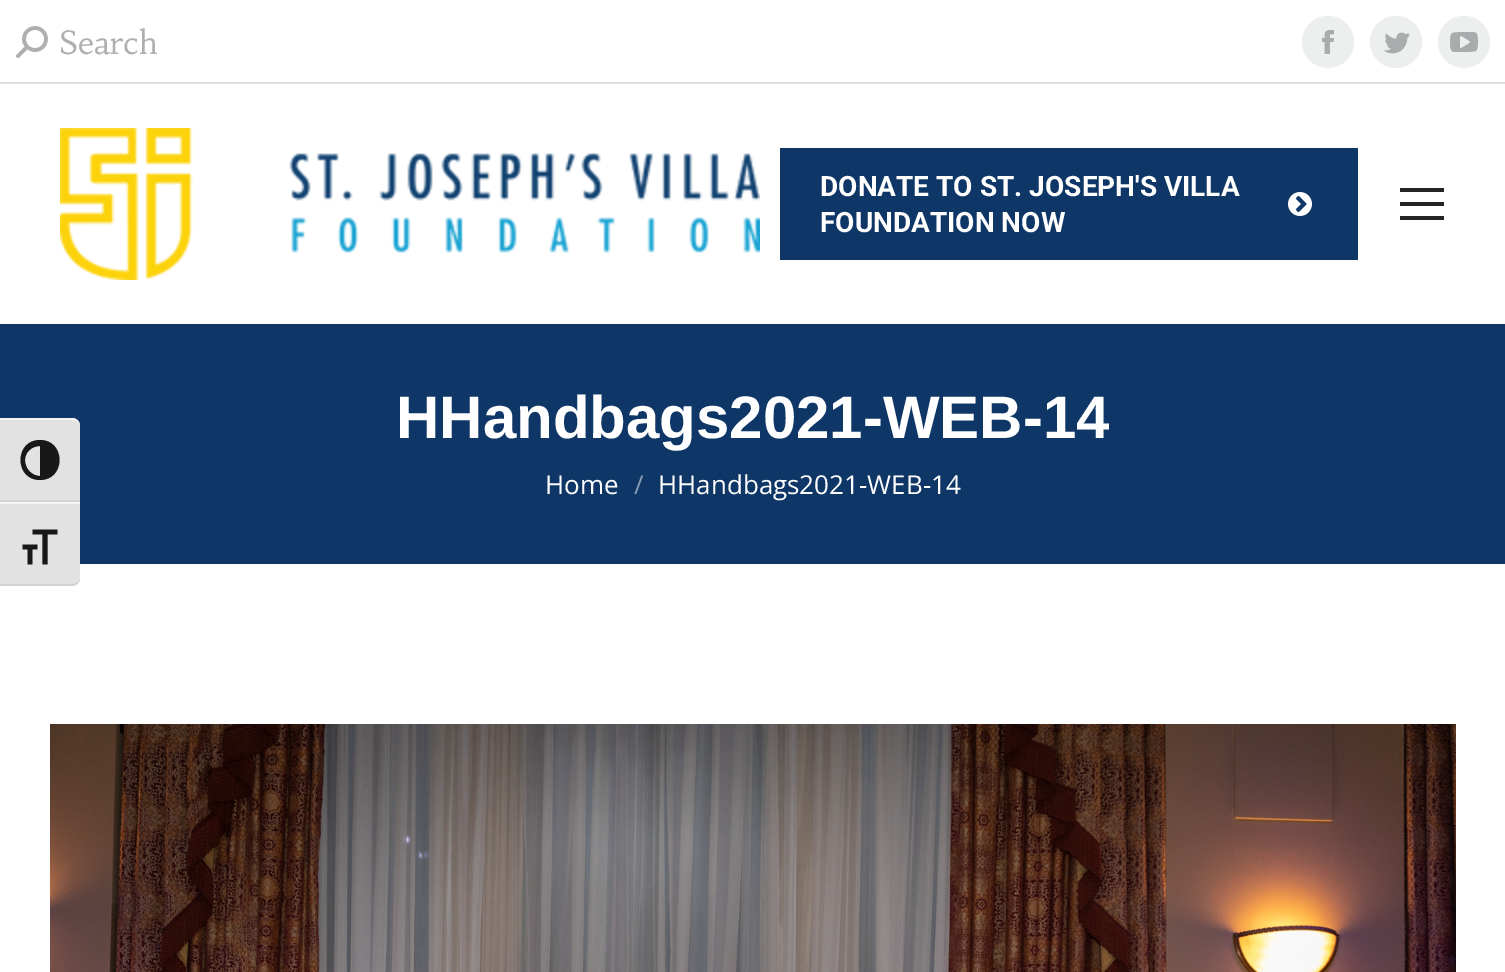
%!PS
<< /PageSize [1505 972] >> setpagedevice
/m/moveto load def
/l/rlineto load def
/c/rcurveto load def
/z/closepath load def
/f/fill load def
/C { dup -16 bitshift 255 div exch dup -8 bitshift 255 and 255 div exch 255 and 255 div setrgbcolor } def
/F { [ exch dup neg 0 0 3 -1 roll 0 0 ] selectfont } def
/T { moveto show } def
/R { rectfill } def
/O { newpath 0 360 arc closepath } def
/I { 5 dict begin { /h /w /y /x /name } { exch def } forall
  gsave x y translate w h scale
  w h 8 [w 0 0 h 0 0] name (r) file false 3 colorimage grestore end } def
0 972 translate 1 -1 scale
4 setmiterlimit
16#FFFFFF C
0 0 1505 972 R
16#0E3666 C
0 324 1505 240 R
16#E2E2E2 C
0 418 m 72 0 l 4.5 0 8 3.5 8 8 c 0 76 l -80 0 l z f
16#F5F5F5 C
0 418 m 0 2 l 72 0 l 4 0 8 3 8 6 c 0 -4 -4 -8 -8 -8 c z f
16#D2D2D2 C
0 500 80 2 R
16#181818 C
40 440 m -26 0 -26 40 0 40 c 26 0 26 -40 0 -40 c z 25 460 m 0 -8 7 -14 15 -14 c 0 30 l -8 0 -15 -7 -15 -16 c z f
16#E2E2E2 C
0 502 m 80 0 l 0 76 l 0 4.5 -3.5 8 -8 8 c -72 0 l z f
16#F5F5F5 C
0 502 80 2 R
16#D2D2D2 C
0 584 m 0 2 l 72 0 l 4 0 8 -4 8 -8 c 0 3 -4 6 -8 6 c z f
(1.rgb) 22 529 36 36 I
(2.rgb) 16 26 32 32 I
/Habibi-Regular 32 F
16#AFAFAF C
(Search) 59 54 T
16#EDEEEE C
1328 42 26 O f
(3.rgb) 1322 30 12 24 I
1396 42 26 O f
(4.rgb) 1384 32 26 22 I
1464 42 26 O f
(5.rgb) 1450 32 28 20 I
16#E0E0E0 C
0 82 1505 2 R
(6.rgb) 60 128 700 152 I
16#0E3666 C
780 148 578 112 R
/Roboto-Bold 28 F
16#FFFFFF C
(DONATE TO ST. JOSEPH'S VILLA) 820 196 T
(FOUNDATION NOW) 820 232 T
(7.rgb) 1288 192 24 24 I
16#252525 C
1400 188 44 4 R
1400 202 44 4 R
1400 216 44 4 R
/LiberationSans-Bold 60 F
16#FFFFFF C
(HHandbags2021-WEB-14) 396 438 T
/OpenSans-Regular 26 F
(Home) 545 494 T
16#879BB3 C
(/) 634 494 T
16#FFFFFF C
(HHandbags2021-WEB-14) 658 494 T
(8.rgb) 50 724 1406 248 I
showpage
